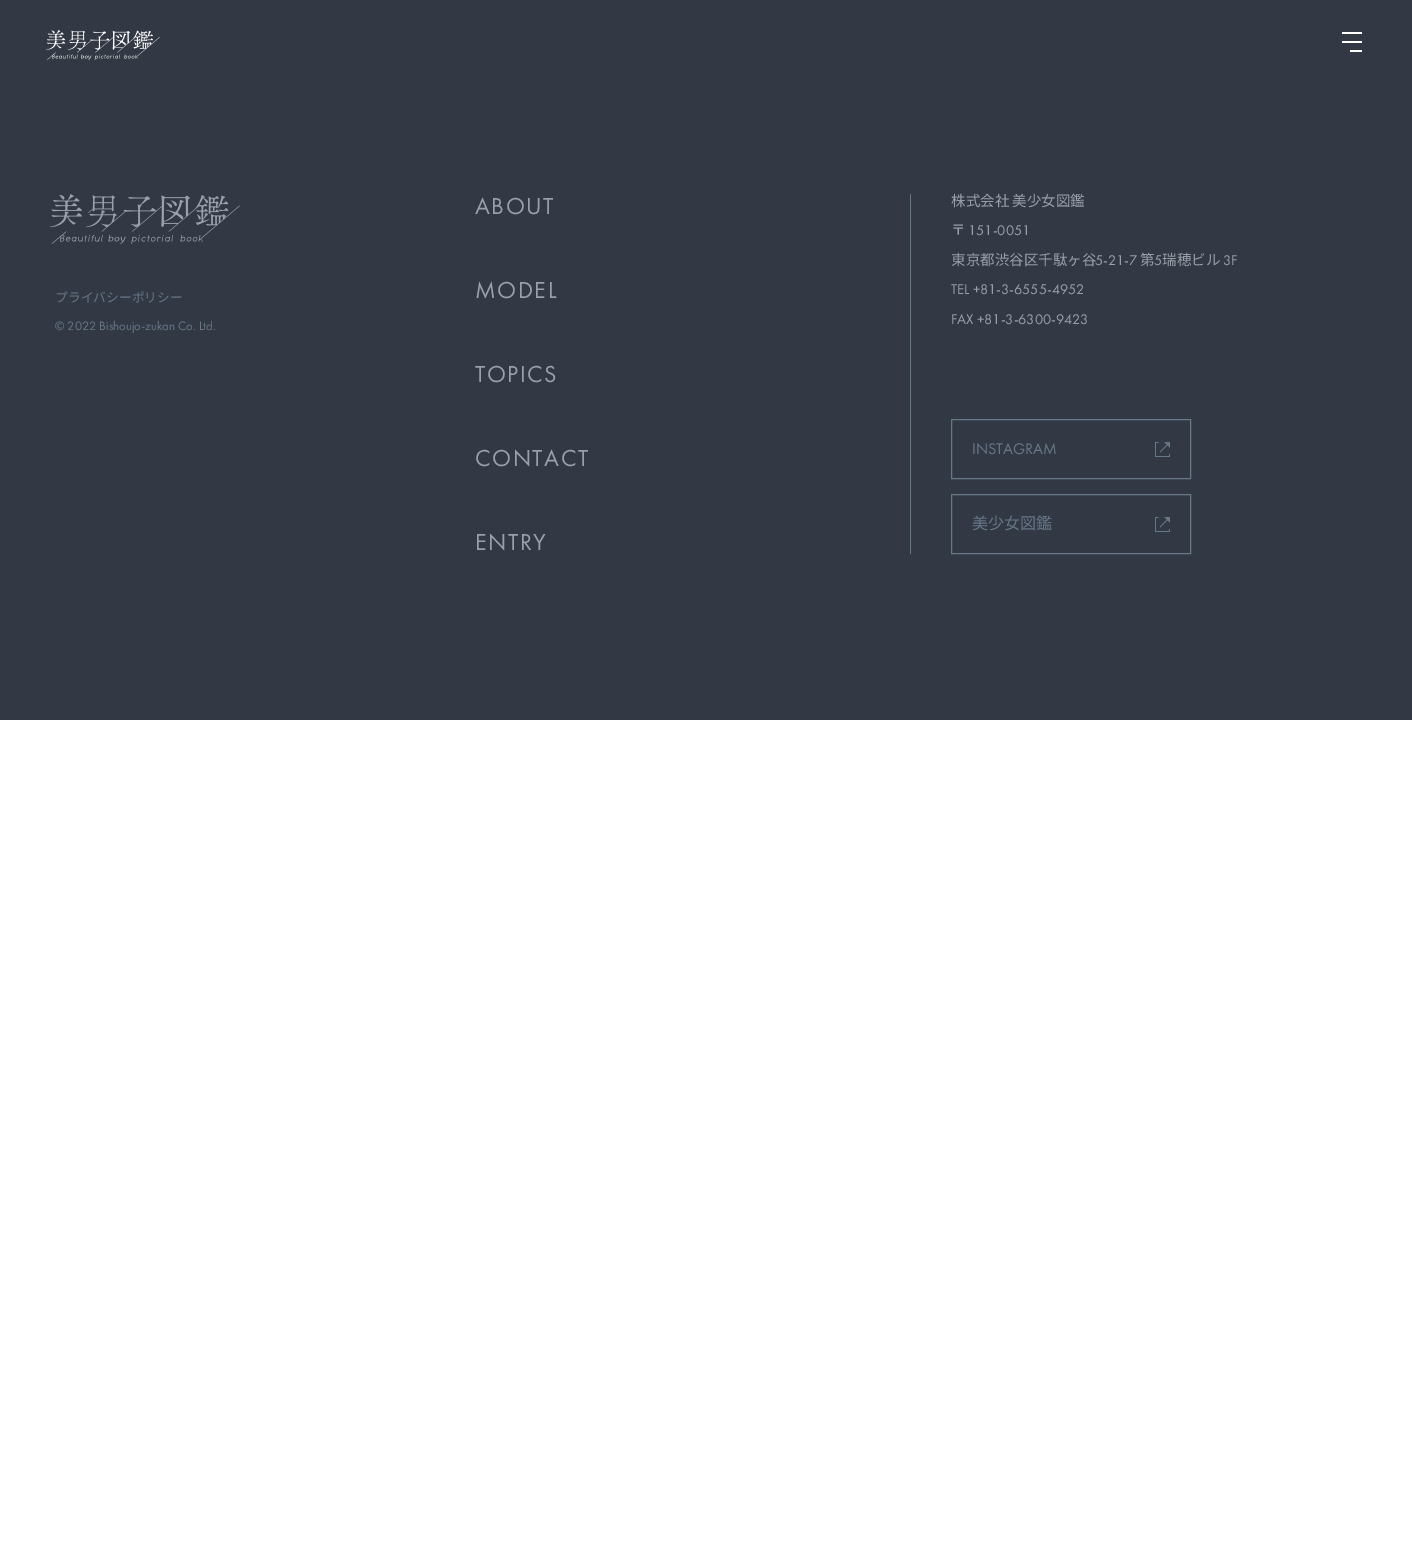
%!PS
<< /PageSize [1412 1568] >> setpagedevice
/m/moveto load def
/C { dup -16 bitshift 255 div exch dup -8 bitshift 255 and 255 div exch 255 and 255 div setrgbcolor } def
/F { [ exch dup neg 0 0 3 -1 roll 0 0 ] selectfont } def
/T { moveto show } def
/R { rectfill } def
/I { 5 dict begin { /h /w /y /x /name } { exch def } forall
  gsave x y translate w h scale
  w h 8 [w 0 0 h 0 0] name (r) file false 3 colorimage grestore end } def
0 1568 translate 1 -1 scale
4 setmiterlimit
16#FFFFFF C
0 0 1412 1568 R
16#333944 C
0 0 1412 720 R
(1.rgb) 45 30 115 30 I
16#FFFFFF C
1342 32 20 2 R
1342 41 20 2 R
1350 50 12 2 R
(2.rgb) 49 194 191 50 I
/NotoSansJP-Regular 12.75 F
16#667788 C
(プライバシーポリシー) 55 302 T
/FuturaPT-Regular 12.75 F
(© 2022 Bishoujo-zukan Co. Ltd.) 55 330 T
/FuturaPT-Regular 24 F
16#99A0AA C
475 214 m 1.5 0 (ABOUT) ashow
475 298 m 1.5 0 (MODEL) ashow
475 382 m 1.5 0 (TOPICS) ashow
475 466 m 1.5 0 (CONTACT) ashow
475 550 m 1.5 0 (ENTRY) ashow
16#667788 C
910 194 1 360 R
/NotoSansJP-Regular 14.5 F
16#99A0AA C
(株式会社 美少女図鑑) 951 206 T
(〒) 951 235 T
/FuturaPT-Regular 14.5 F
(151-0051) 968 235 T
/NotoSansJP-Regular 14.5 F
(東京都渋谷区千駄ヶ谷) 951 265 T
/FuturaPT-Regular 14.5 F
(5-21-7) 1095 265 T
/NotoSansJP-Regular 14.5 F
(第) 1140 265 T
/FuturaPT-Regular 14.5 F
(5) 1154 265 T
/NotoSansJP-Regular 14.5 F
(瑞穂ビル) 1162 265 T
/FuturaPT-Regular 14.5 F
(3F) 1223 265 T
(TEL +81-3-6555-4952) 951 294 T
(FAX +81-3-6300-9423) 951 324 T
16#667788 C
951.5 419.5 239 59 rectstroke
/FuturaPT-Regular 16 F
(INSTAGRAM) 972 454 T
(3.rgb) 1155 442 15 15 I
951.5 494.5 239 59 rectstroke
/NotoSansJP-Regular 16 F
(美少女図鑑) 972 529 T
(3.rgb) 1155 517 15 15 I
showpage
